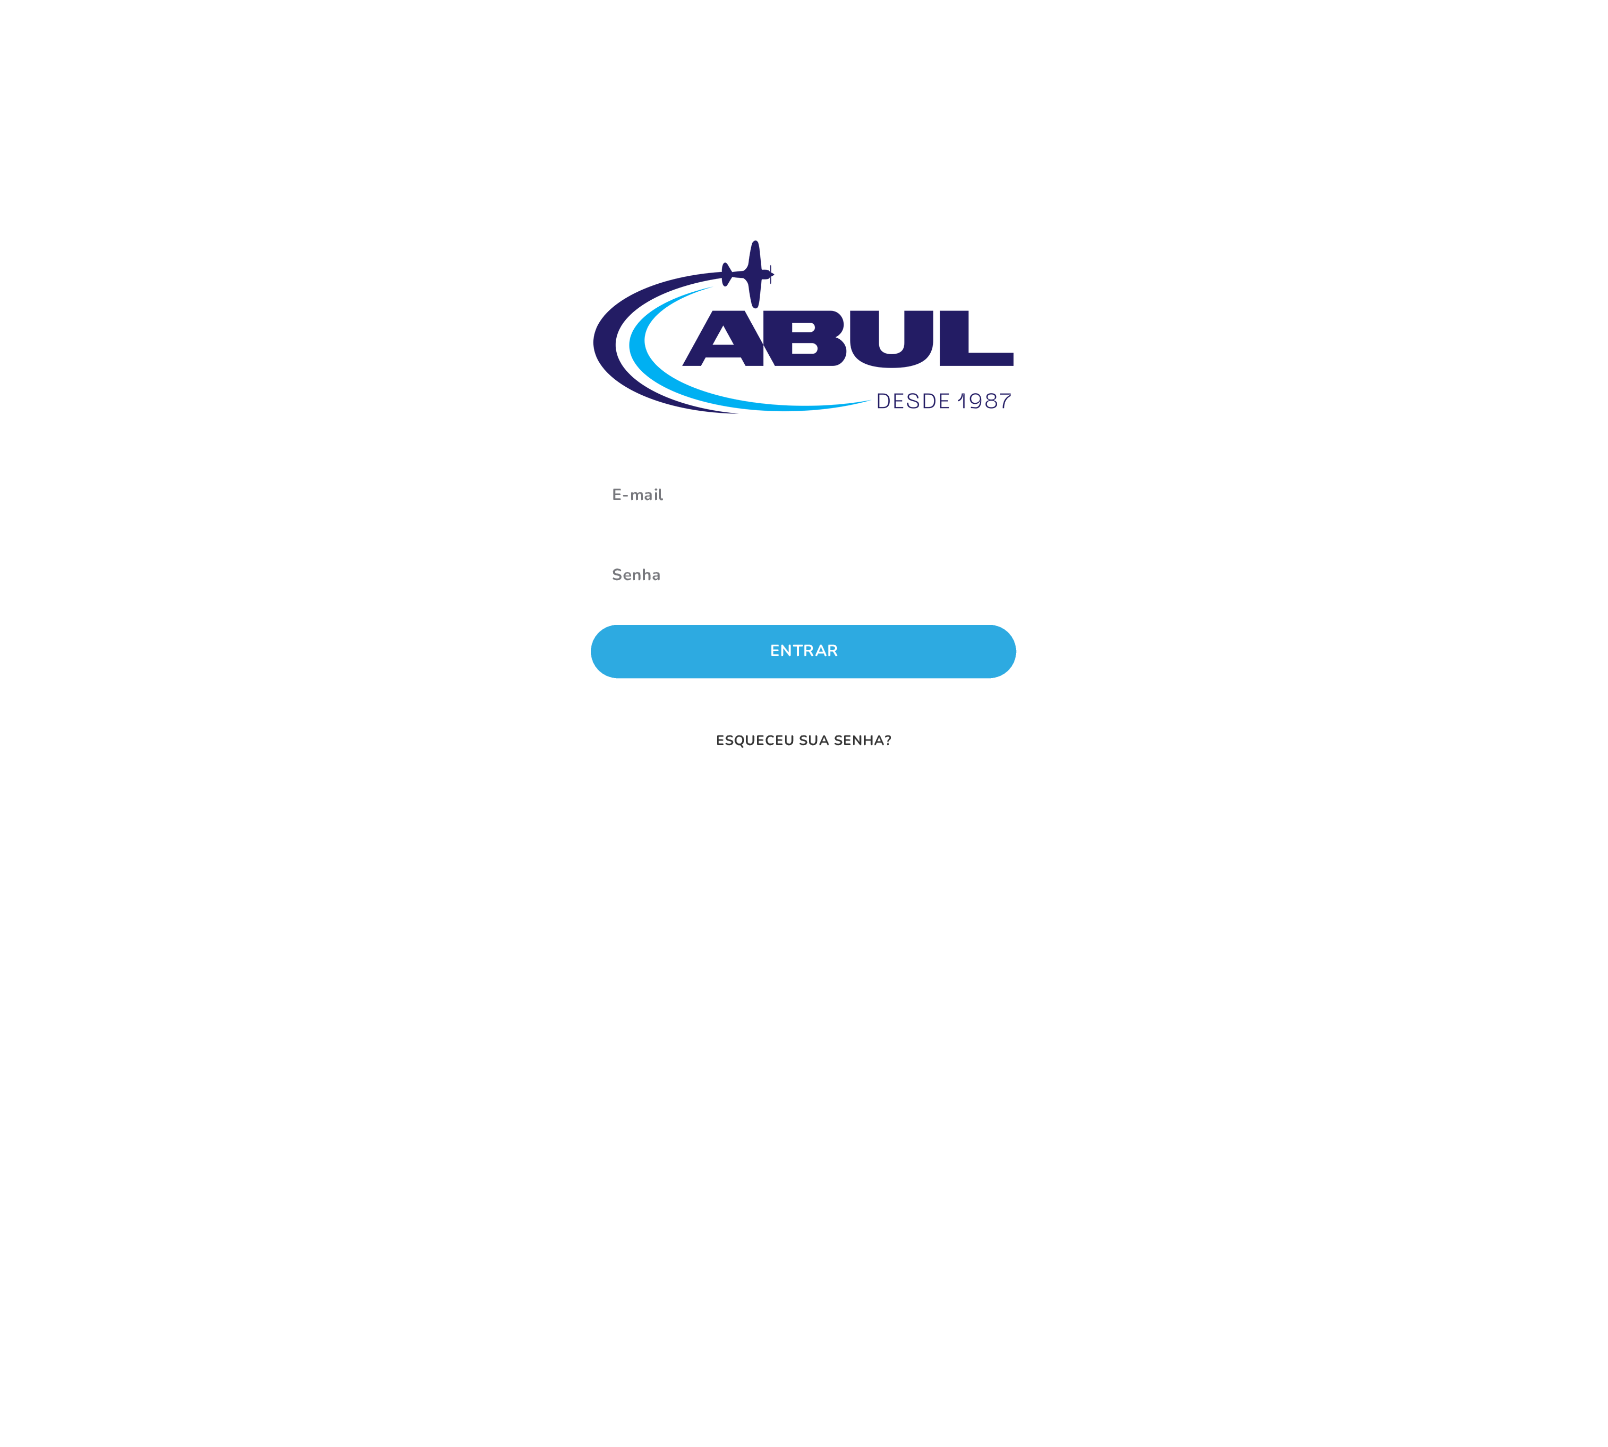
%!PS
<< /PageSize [1608 1447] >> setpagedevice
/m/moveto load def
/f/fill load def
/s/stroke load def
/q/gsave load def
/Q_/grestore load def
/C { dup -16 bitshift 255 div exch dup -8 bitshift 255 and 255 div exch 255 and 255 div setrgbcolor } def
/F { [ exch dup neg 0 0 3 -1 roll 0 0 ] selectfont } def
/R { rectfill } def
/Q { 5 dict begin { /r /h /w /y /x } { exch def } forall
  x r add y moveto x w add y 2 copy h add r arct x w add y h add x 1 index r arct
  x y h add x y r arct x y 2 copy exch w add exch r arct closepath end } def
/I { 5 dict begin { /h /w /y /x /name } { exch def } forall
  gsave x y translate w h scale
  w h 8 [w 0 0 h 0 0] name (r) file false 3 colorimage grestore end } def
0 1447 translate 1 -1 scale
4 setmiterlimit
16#FFFFFF C
0 0 1608 1447 R
(1.rgb) 593 240 421 174 I
/Nunito-Bold 16 F
16#77787D C
612 500 m .6 0 (E-mail) ashow
612 580 m .6 0 (Senha) ashow
16#2DAAE1 C
591.5 625.5 424 52 26 Q q f Q_
s
16#FFFFFF C
770 656 m .6 0 (ENTRAR) ashow
/Nunito-Bold 13.75 F
16#333333 C
716 745 m .6 0 (ESQUECEU SUA SENHA?) ashow
showpage
